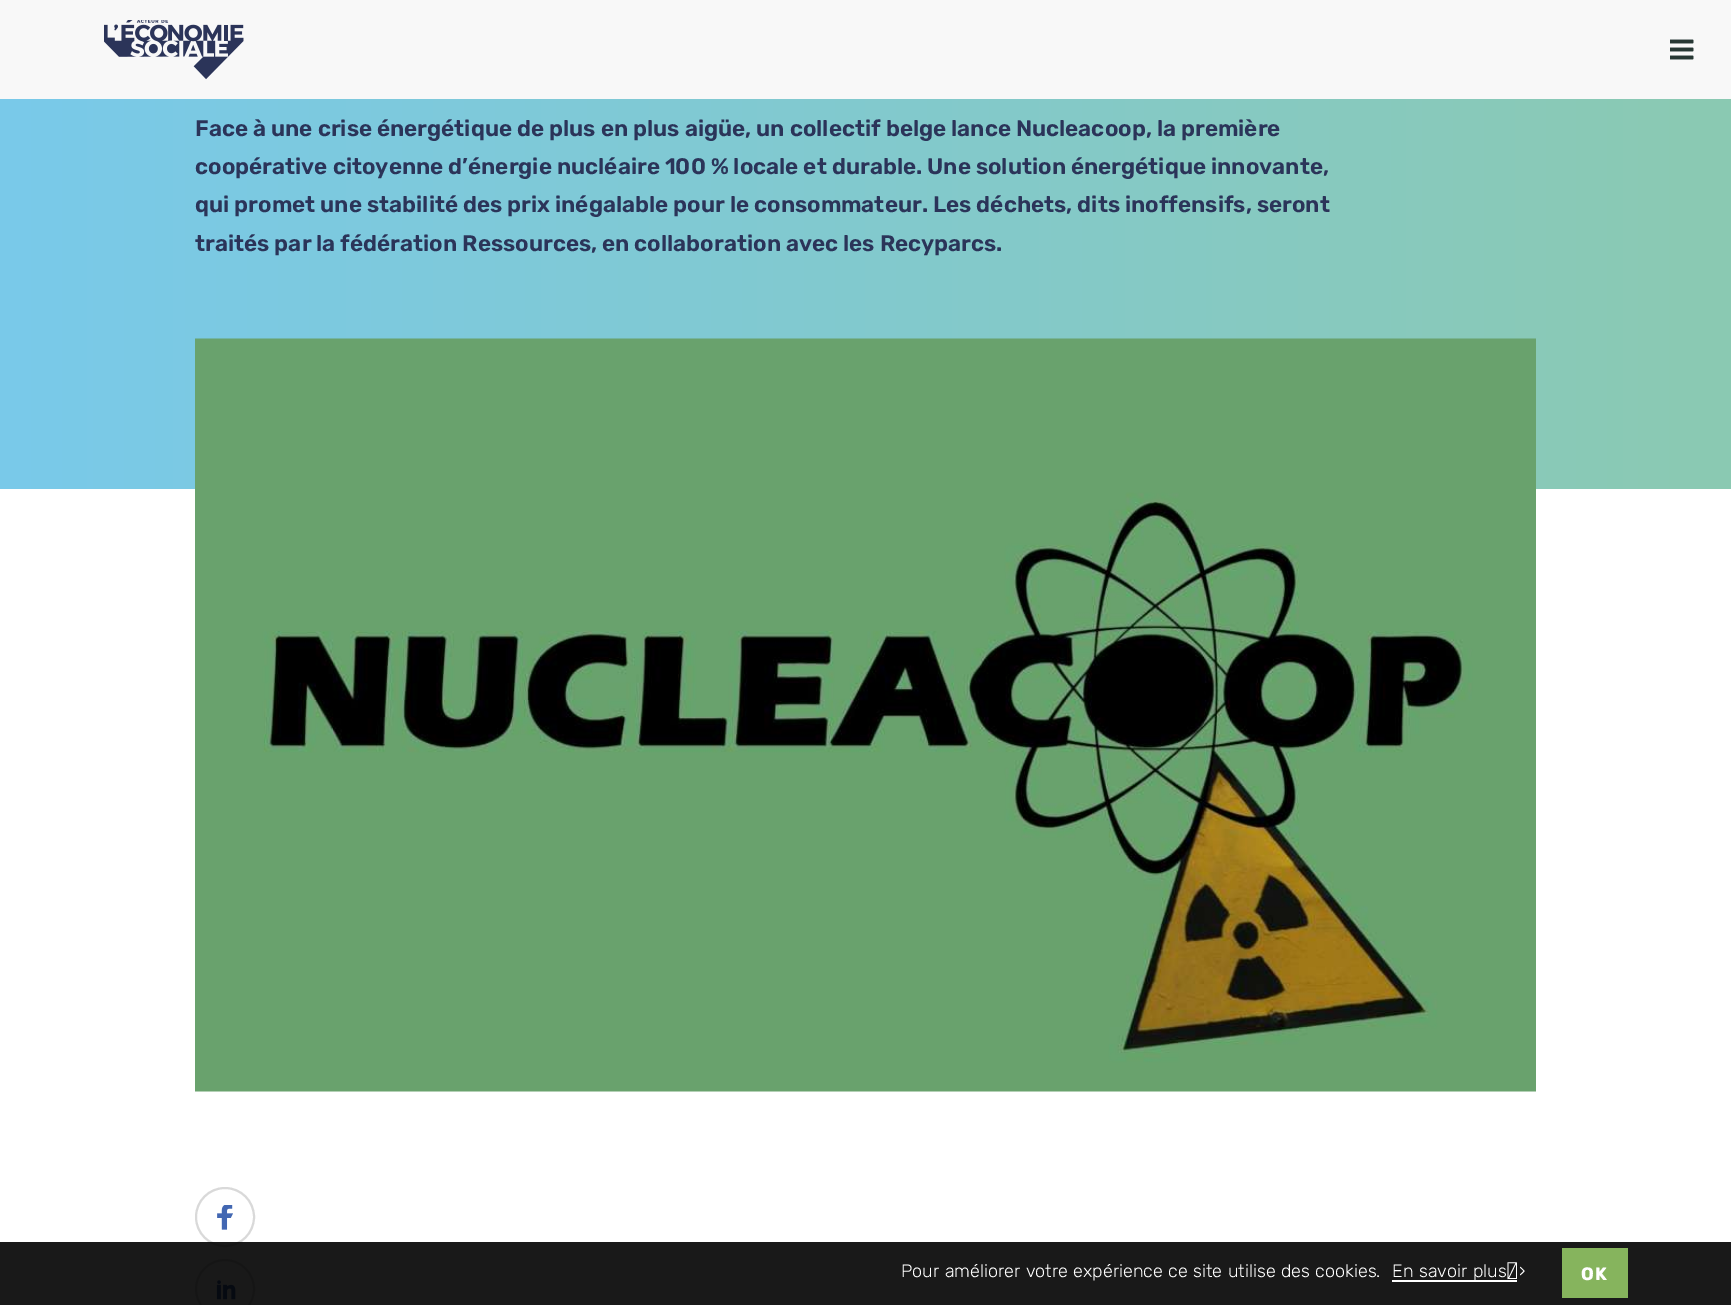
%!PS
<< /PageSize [1731 1305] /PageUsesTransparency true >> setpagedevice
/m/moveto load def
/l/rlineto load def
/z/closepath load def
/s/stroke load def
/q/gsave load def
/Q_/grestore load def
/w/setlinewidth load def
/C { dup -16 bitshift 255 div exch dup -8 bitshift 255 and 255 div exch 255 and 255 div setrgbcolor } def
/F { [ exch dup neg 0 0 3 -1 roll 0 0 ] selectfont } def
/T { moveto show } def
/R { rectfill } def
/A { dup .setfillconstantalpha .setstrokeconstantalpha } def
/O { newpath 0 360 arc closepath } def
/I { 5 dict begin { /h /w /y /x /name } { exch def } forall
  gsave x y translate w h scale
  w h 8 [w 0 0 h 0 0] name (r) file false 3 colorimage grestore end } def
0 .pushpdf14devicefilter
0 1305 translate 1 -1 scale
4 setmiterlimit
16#FFFFFF C
0 0 1731 1305 R
16#F8F8F8 C
0 0 1731 99 R
(1.rgb) 104 20 140 60 I
(2.rgb) 1670 39 24 21 I
q 0 99 m 1731 0 l 0 390 l -1731 0 l z clip newpath
<< /ShadingType 2 /ColorSpace /DeviceRGB /Coords [0 37 1731 37] /Extend [true true] /Function << /FunctionType 2 /Domain [0 1] /C0 [.475 .788 .918] /C1 [.545 .788 .698] /N 1 >> >> shfill Q_
/Rubik-SemiBold 22.5 F
16#2B3459 C
(Face à une crise énergétique de plus en plus aigüe, un collectif belge lance Nucleacoop, la première) 195 136 T
(coopérative citoyenne d’énergie nucléaire 100 % locale et durable. Une solution énergétique innovante,) 195 174 T
(qui promet une stabilité des prix inégalable pour le consommateur. Les déchets, dits inoffensifs, seront) 195 212 T
(traités par la fédération Ressources, en collaboration avec les Recyparcs.) 195 251 T
(3.rgb) 195 338 1341 754 I
16#D9D9D9 C
2 w
225 1217 29 O s
(4.rgb) 217 1205 16 25 I
225 1289 29 O s
(5.rgb) 216 1280 20 20 I
0.9 A
16#000000 C
0 1242 1731 63 R
/Rubik-Light 18 F
1 A
16#FFFFFF C
901 1277 m .75 0 32 (Pour améliorer votre expérience ce site utilise des cookies.) widthshow
1392 1280 125 2 R
1392 1277 m .75 0 32 (En savoir plus ›) widthshow
16#86B45D C
1562 1248 66 50 R
/Rubik-Bold 18 F
16#FFFFFF C
1581 1280 m 1 0 (OK) ashow
.poppdf14devicefilter showpage
